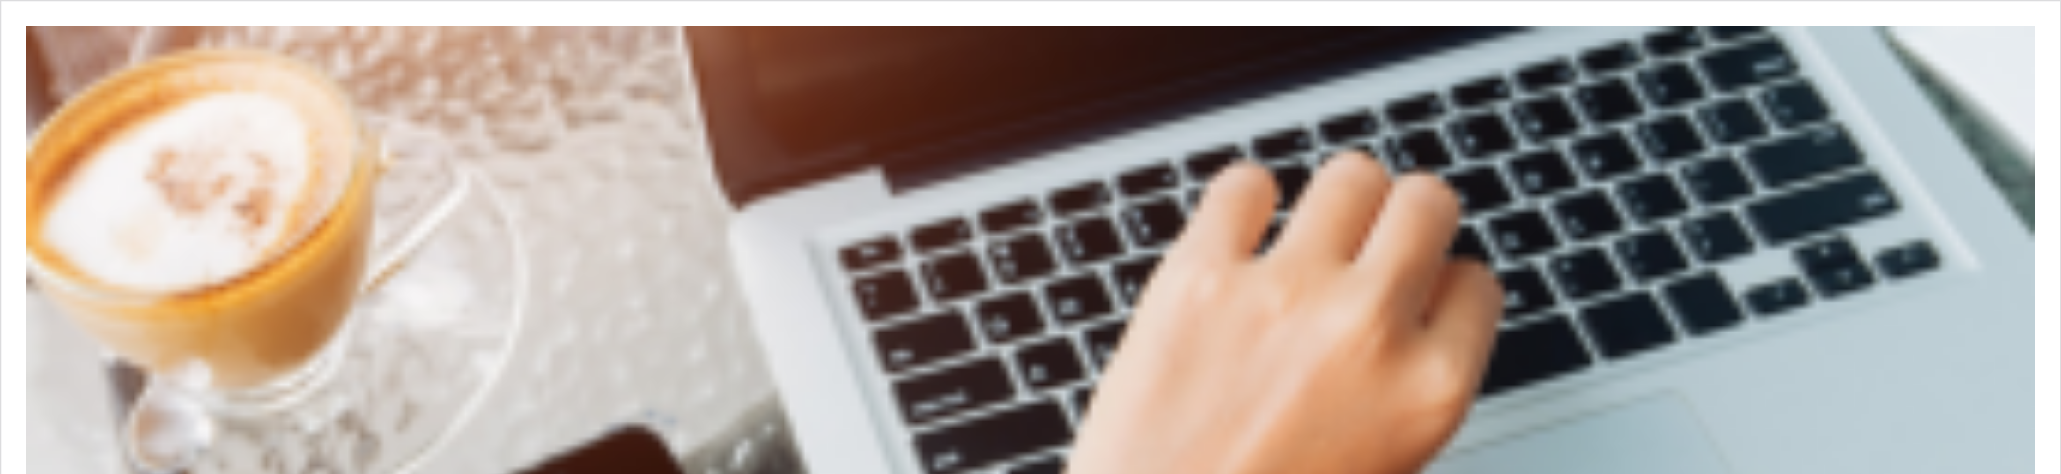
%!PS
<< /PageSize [2061 474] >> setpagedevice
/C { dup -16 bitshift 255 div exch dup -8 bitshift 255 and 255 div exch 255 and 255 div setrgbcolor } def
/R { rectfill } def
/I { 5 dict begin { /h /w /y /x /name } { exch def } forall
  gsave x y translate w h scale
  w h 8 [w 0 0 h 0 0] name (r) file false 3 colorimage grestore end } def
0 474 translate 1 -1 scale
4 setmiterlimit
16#FFFFFF C
0 0 2061 474 R
16#DCDCDE C
.5 .5 2060 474 rectstroke
(1.rgb) 26 26 2009 448 I
showpage
